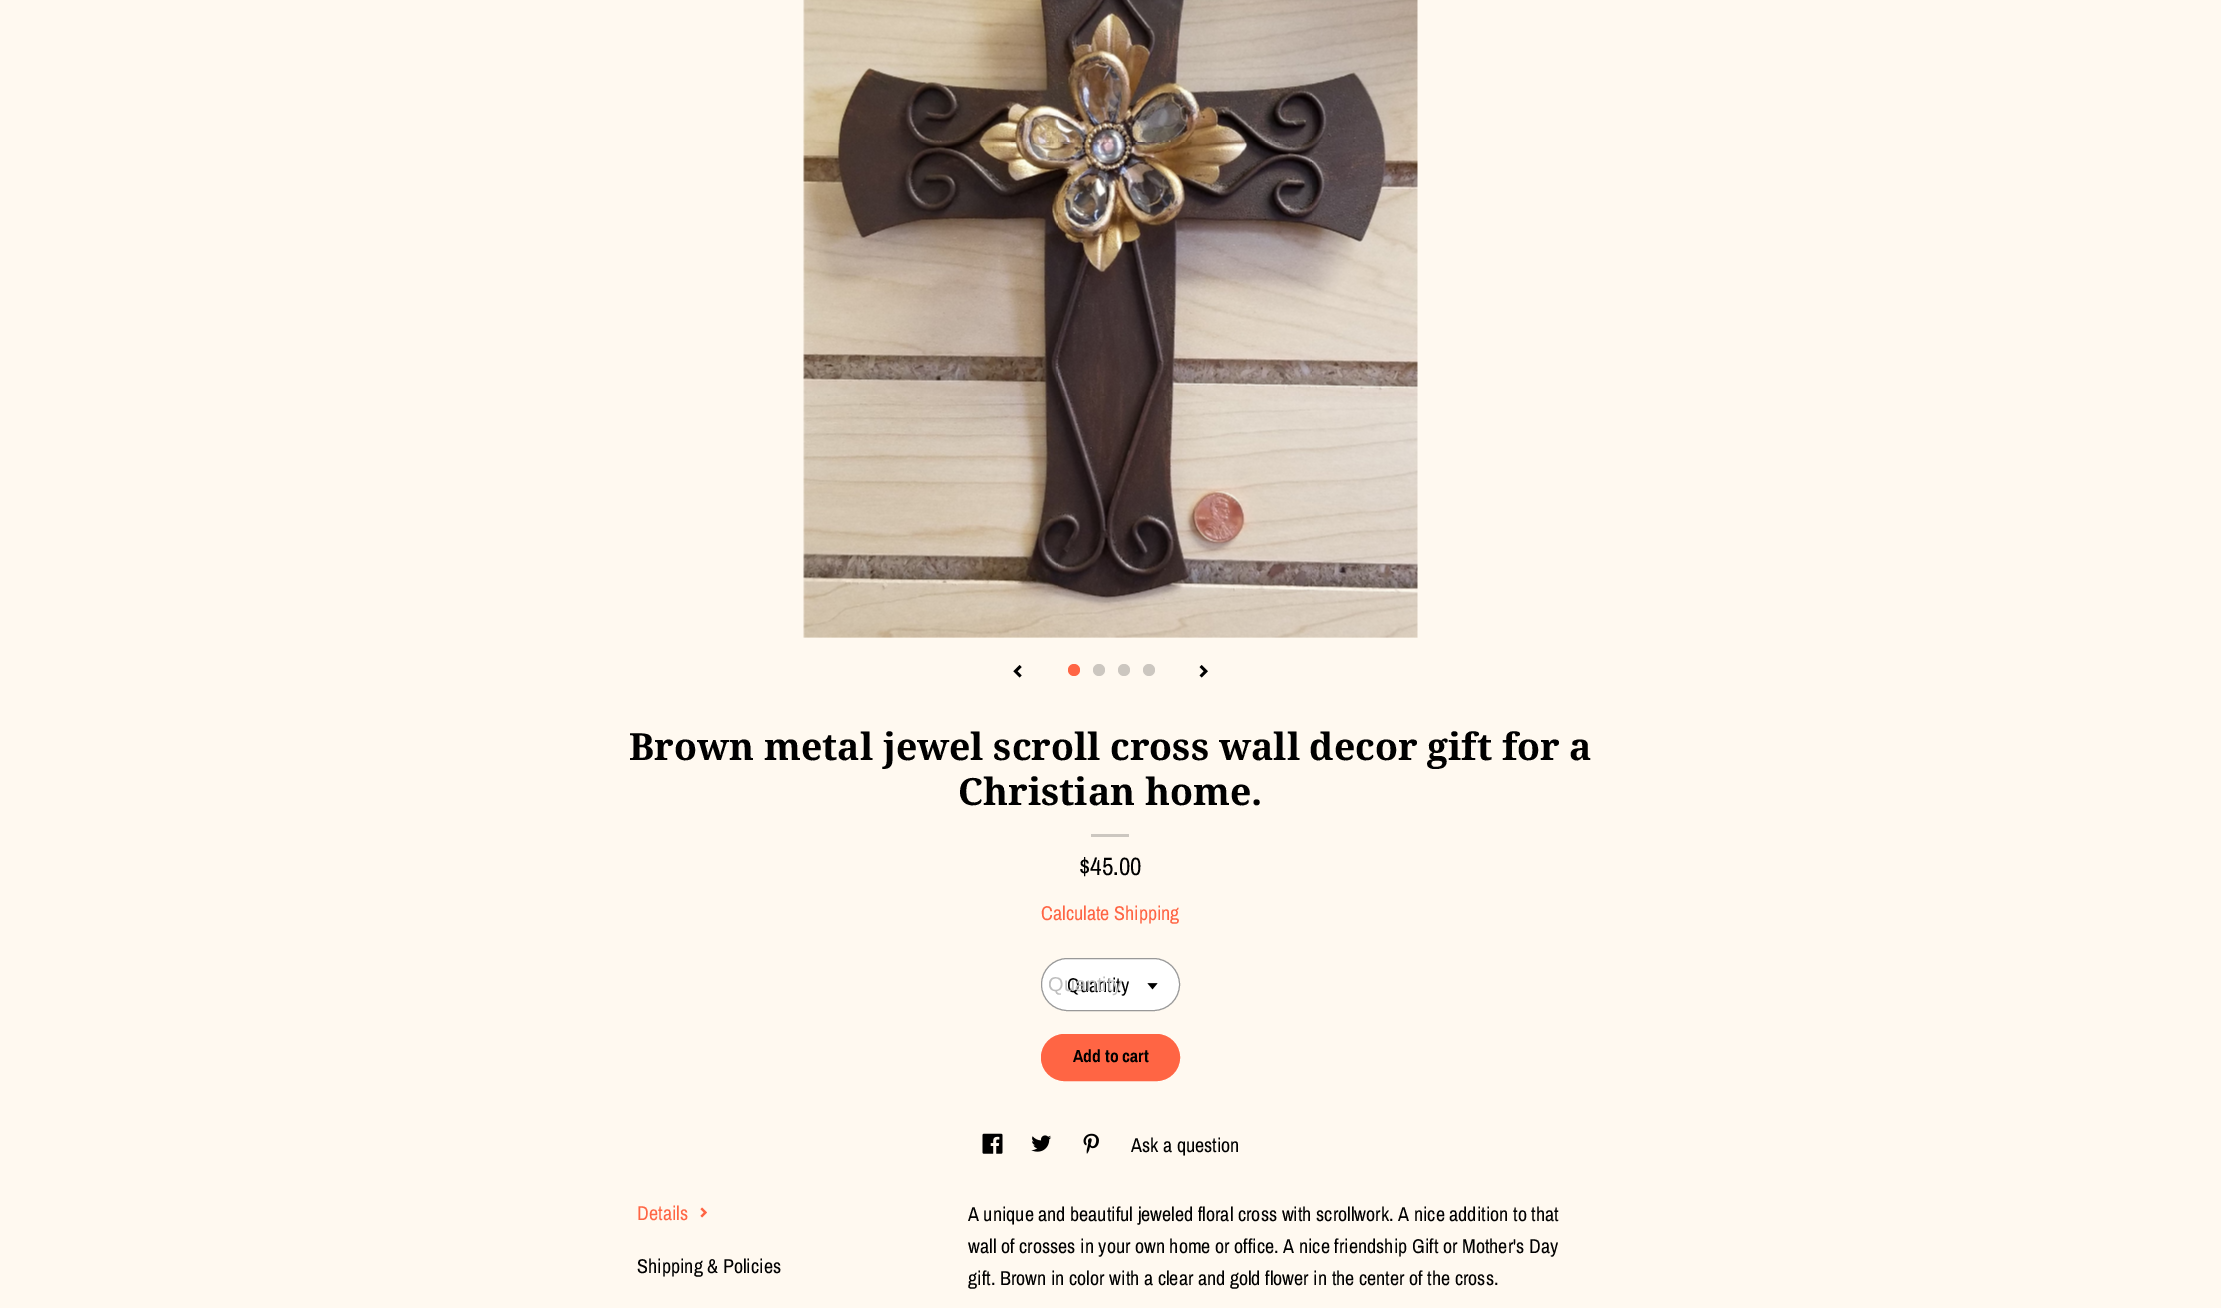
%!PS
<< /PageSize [2221 1308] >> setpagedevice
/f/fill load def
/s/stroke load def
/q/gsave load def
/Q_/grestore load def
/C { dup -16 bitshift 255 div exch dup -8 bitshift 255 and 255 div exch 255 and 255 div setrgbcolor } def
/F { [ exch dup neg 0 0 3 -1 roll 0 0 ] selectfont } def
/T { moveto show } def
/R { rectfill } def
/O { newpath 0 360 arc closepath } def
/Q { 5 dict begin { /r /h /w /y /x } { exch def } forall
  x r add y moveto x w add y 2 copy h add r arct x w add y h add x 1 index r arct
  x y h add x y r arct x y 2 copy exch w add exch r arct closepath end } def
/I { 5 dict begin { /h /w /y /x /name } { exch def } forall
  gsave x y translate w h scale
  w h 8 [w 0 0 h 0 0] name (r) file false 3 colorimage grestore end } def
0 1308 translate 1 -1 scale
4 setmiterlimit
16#FFF9F0 C
0 0 2221 1308 R
(1.rgb) 803 0 615 638 I
(2.rgb) 1013 665 9 13 I
16#FF6544 C
1074 670 6 O f
16#CCC7C0 C
1099 670 6 O f
1124 670 6 O f
1149 670 6 O f
(3.rgb) 1199 665 9 13 I
/DroidSerif-Bold 37.5 F
16#000000 C
(Brown metal jewel scroll cross wall decor gift for a) 629 760 T
(Christian home.) 958 805 T
16#CCC7C0 C
1091 834 38 3 R
/ArchivoNarrow-Regular 25 F
16#000000 C
($45.00) 1079 875 T
/ArchivoNarrow-Regular 20 F
16#FF6544 C
(Calculate Shipping) 1041 920 T
16#FFFFFF C
1041.5 958.5 138 52 26 Q q f Q_
16#999999 C
s
16#000000 C
(Quantity) 1067 992 T
/LiberationSans-Regular 20 F
16#BEBEBE C
(Quantity) 1048 991 T
(4.rgb) 1147 983 11 7 I
16#FF6544 C
1041.5 1034.5 138 46 23 Q q f Q_
s
/ArchivoNarrow-Bold 17.5 F
16#000000 C
(Add to cart) 1073 1062 T
(5.rgb) 982 1133 21 21 I
(6.rgb) 1031 1135 21 17 I
(7.rgb) 1083 1133 16 21 I
/ArchivoNarrow-Regular 20 F
(Ask a question) 1131 1152 T
16#FF6544 C
(Details) 637 1220 T
(8.rgb) 700 1207 7 11 I
16#000000 C
(Shipping & Policies) 637 1273 T
(A unique and beautiful jeweled floral cross with scrollwork. A nice addition to that) 968 1221 T
(wall of crosses in your own home or office. A nice friendship Gift or Mother's Day) 968 1253 T
(gift. Brown in color with a clear and gold flower in the center of the cross.) 968 1285 T
showpage
